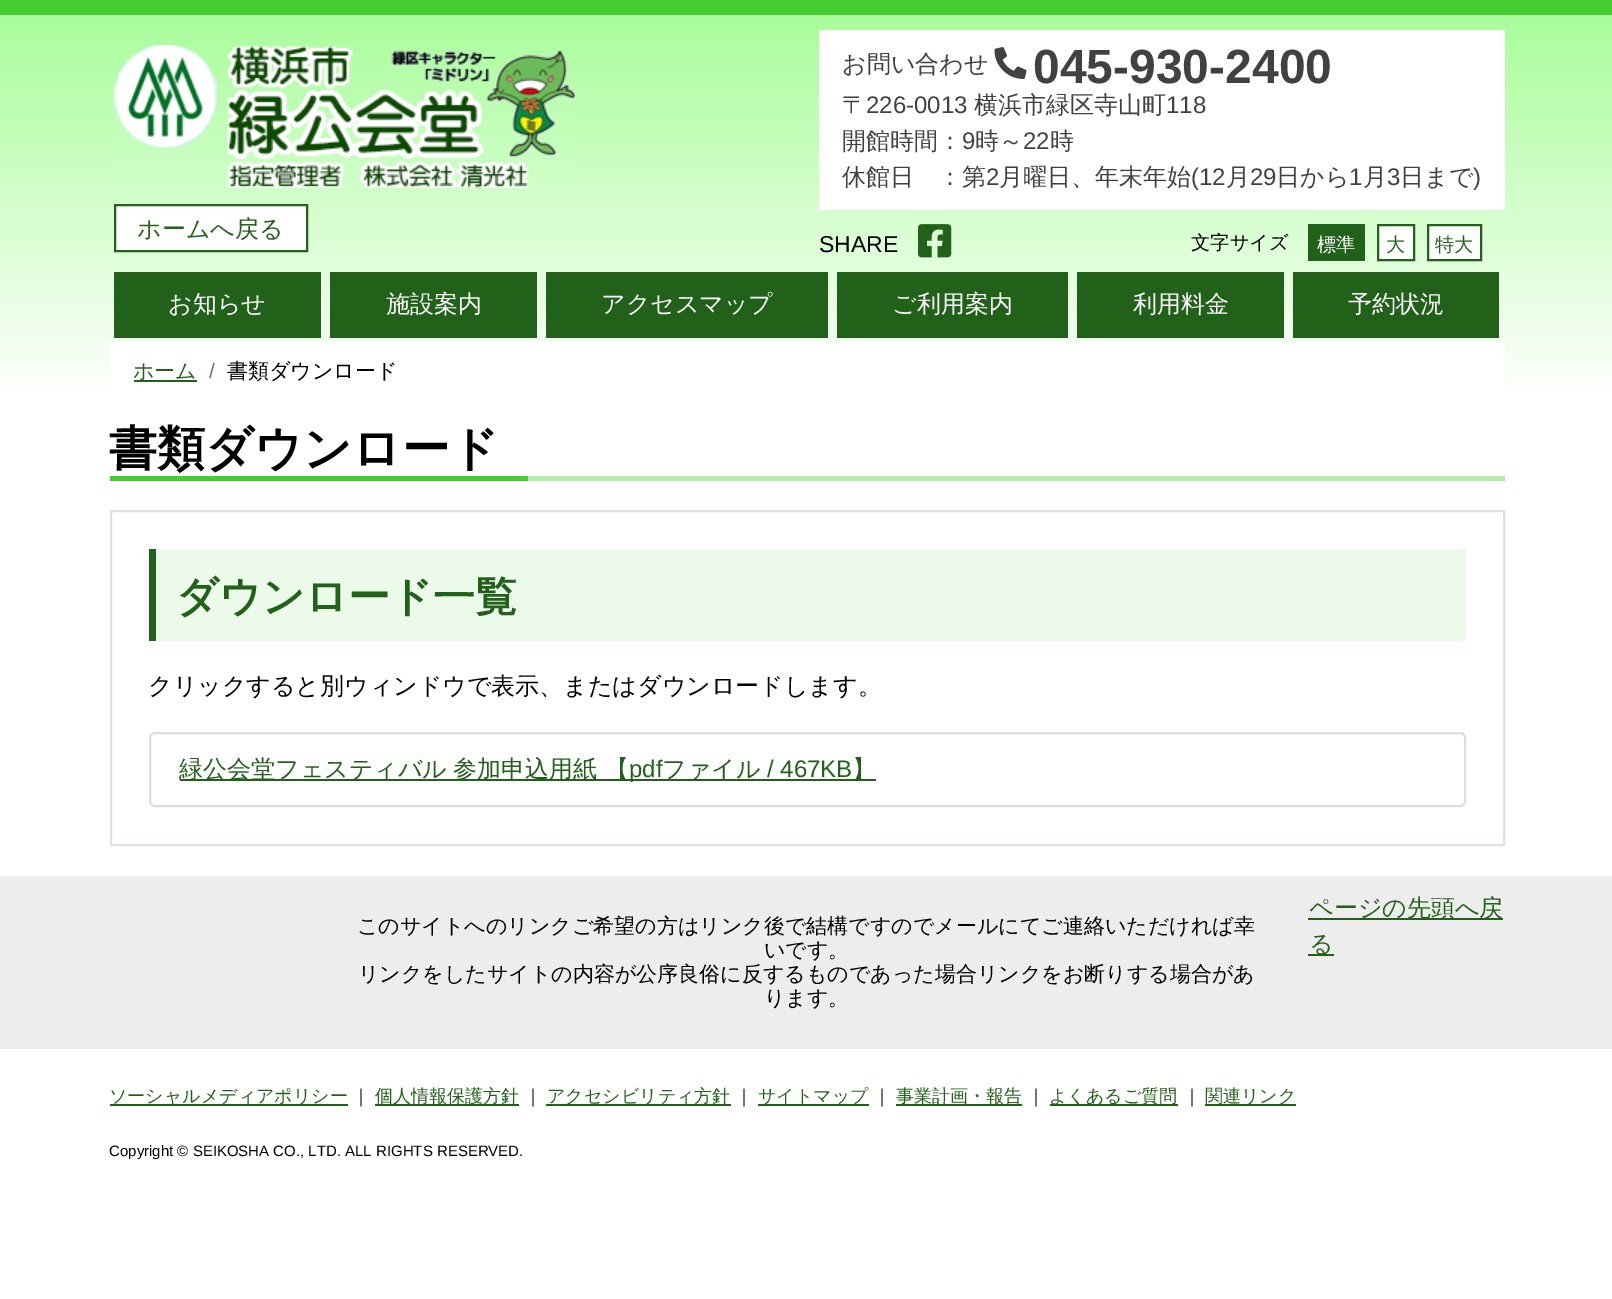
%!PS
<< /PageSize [1612 1299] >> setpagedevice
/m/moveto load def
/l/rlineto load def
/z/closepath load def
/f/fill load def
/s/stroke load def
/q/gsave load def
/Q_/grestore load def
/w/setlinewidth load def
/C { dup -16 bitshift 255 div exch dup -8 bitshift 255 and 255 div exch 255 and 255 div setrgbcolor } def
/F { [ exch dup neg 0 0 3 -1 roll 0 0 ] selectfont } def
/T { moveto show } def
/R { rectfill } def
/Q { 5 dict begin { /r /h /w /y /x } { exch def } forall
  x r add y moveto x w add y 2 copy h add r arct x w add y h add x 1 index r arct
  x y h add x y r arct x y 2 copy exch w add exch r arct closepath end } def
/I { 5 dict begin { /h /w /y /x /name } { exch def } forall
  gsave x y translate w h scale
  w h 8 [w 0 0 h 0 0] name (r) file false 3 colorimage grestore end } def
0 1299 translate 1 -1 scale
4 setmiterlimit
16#FFFFFF C
0 0 1612 1299 R
q 0 15 m 1612 0 l 0 374 l -1612 0 l z clip newpath
<< /ShadingType 2 /ColorSpace /DeviceRGB /Coords [806 15 806 399] /Extend [true true] /Function << /FunctionType 2 /Domain [0 1] /C0 [.663 .992 .608] /C1 [1 1 1] /N 1 >> >> shfill Q_
16#44CE2F C
0 0 1612 15 R
(1.rgb) 114 45 461 143 I
16#FFFFFF C
115 205 m 192 0 l 0 46 l -192 0 l z q f Q_
16#226119 C
2 w
s
/WenQuanYiZenHei-Medium 24 F
(ホームへ戻る) 137 237 T
16#FFFFFF C
819 30 686 180 R
16#414141 C
(お問い合わせ) 842 72 T
(2.rgb) 994 47 33 32 I
/LiberationSans-Bold 48 F
(045-930-2400) 1033 83 T
/WenQuanYiZenHei-Medium 24 F
(〒) 842 113 T
/LiberationSans-Regular 24 F
(226-0013) 866 113 T
/WenQuanYiZenHei-Medium 24 F
(横浜市緑区寺山町) 974 113 T
/LiberationSans-Regular 24 F
(118) 1166 113 T
/WenQuanYiZenHei-Medium 24 F
(開館時間：) 842 149 T
/LiberationSans-Regular 24 F
(9) 962 149 T
/WenQuanYiZenHei-Medium 24 F
(時～) 975 149 T
/LiberationSans-Regular 24 F
(22) 1023 149 T
/WenQuanYiZenHei-Medium 24 F
(時) 1050 149 T
(休館日　：第) 842 185 T
/LiberationSans-Regular 24 F
(2) 986 185 T
/WenQuanYiZenHei-Medium 24 F
(月曜日、年末年始) 999 185 T
/LiberationSans-Regular 24 F
(\(12) 1191 185 T
/WenQuanYiZenHei-Medium 24 F
(月) 1226 185 T
/LiberationSans-Regular 24 F
(29) 1250 185 T
/WenQuanYiZenHei-Medium 24 F
(日から) 1276 185 T
/LiberationSans-Regular 24 F
(1) 1349 185 T
/WenQuanYiZenHei-Medium 24 F
(月) 1363 185 T
/LiberationSans-Regular 24 F
(3) 1387 185 T
/WenQuanYiZenHei-Medium 24 F
(日まで) 1400 185 T
/LiberationSans-Regular 24 F
(\)) 1473 185 T
/LiberationSans-Regular 23 F
16#000000 C
(SHARE) 819 252 T
(3.rgb) 918 224 34 34 I
/WenQuanYiZenHei-Medium 19.25 F
(文字サイズ) 1191 249 T
16#226119 C
1308 224 57 37 R
16#FFFFFF C
(標準) 1317 251 T
1378 225 m 36 0 l 0 35 l -36 0 l z q f Q_
16#226119 C
s
(大) 1386 251 T
16#FFFFFF C
1428 225 m 53 0 l 0 35 l -53 0 l z q f Q_
16#226119 C
s
(特大) 1435 251 T
114 272 207 66 R
/WenQuanYiZenHei-Medium 24 F
16#FFFFFF C
(お知らせ) 168 312 T
16#226119 C
330 272 207 66 R
16#FFFFFF C
(施設案内) 386 312 T
16#226119 C
546 272 282 66 R
16#FFFFFF C
(アクセスマップ) 601 312 T
16#226119 C
837 272 231 66 R
16#FFFFFF C
(ご利用案内) 892 312 T
16#226119 C
1077 272 207 66 R
16#FFFFFF C
(利用料金) 1133 312 T
16#226119 C
1293 272 206 66 R
16#FFFFFF C
(予約状況) 1348 312 T
110 342 1395 47 R
16#226119 C
134 380 63 2 R
/WenQuanYiZenHei-Medium 21 F
(ホーム) 133 378 T
/LiberationSans-Regular 21 F
16#6C757D C
(/) 209 378 T
/WenQuanYiZenHei-Medium 21 F
16#000000 C
(書類ダウンロード) 227 378 T
16#B3ECAA C
528 476 977 5 R
/WenQuanYiZenHei-Bold 48 F
16#000000 C
(書類ダウンロード) 109 465 T
16#44CE2F C
110 476 418 5 R
16#DEE2E6 C
111 511 1393 334 rectstroke
16#EBFAE9 C
156 549 1310 92 R
16#226119 C
149 549 7 92 R
/WenQuanYiZenHei-Bold 42 F
(ダウンロード一覧) 176 611 T
/WenQuanYiZenHei-Medium 24 F
16#000000 C
(クリックすると別ウィンドウで表示、またはダウンロードします。) 148 694 T
16#DFDFDF C
150 733 1315 73 5 Q s
16#226119 C
180 779 696 2 R
179 777 m -1 0 32 (緑公会堂フェスティバル 参加申込用紙) widthshow
(【) 605 777 T
/LiberationSans-Regular 24 F
(pdf) 629 777 T
/WenQuanYiZenHei-Medium 24 F
(ファイル) 662 777 T
/LiberationSans-Regular 24 F
(/ 467KB) 767 777 T
/WenQuanYiZenHei-Medium 24 F
(】) 852 777 T
16#EDEDED C
0 876 1612 173 R
/WenQuanYiZenHei-Medium 21 F
16#000000 C
(このサイトへのリンクご希望の方はリンク後で結構ですのでメールにてご連絡いただければ幸) 357 933 T
(いです。) 764 957 T
(リンクをしたサイトの内容が公序良俗に反するものであった場合リンクをお断りする場合があ) 358 981 T
(ります。) 764 1005 T
16#226119 C
1308 918 195 2 R
/WenQuanYiZenHei-Medium 24 F
(ページの先頭へ戻) 1309 916 T
1308 954 26 2 R
(る) 1309 952 T
110 1104 238 2 R
/WenQuanYiZenHei-Medium 18 F
(ソーシャルメディアポリシー) 109 1102 T
16#000000 C
(｜) 352 1102 T
16#226119 C
375 1104 144 2 R
(個人情報保護方針) 375 1102 T
16#000000 C
(｜) 524 1102 T
16#226119 C
546 1104 185 2 R
(アクセシビリティ方針) 547 1102 T
16#000000 C
(｜) 735 1102 T
16#226119 C
758 1104 111 2 R
(サイトマップ) 758 1102 T
16#000000 C
(｜) 873 1102 T
16#226119 C
896 1104 126 2 R
(事業計画・報告) 896 1102 T
16#000000 C
(｜) 1027 1102 T
16#226119 C
1050 1104 128 2 R
(よくあるご質問) 1049 1102 T
16#000000 C
(｜) 1183 1102 T
16#226119 C
1205 1104 91 2 R
(関連リンク) 1205 1102 T
/LiberationSans-Regular 15 F
16#000000 C
(Copyright © SEIKOSHA CO., LTD. ALL RIGHTS RESERVED.) 109 1156 T
showpage
